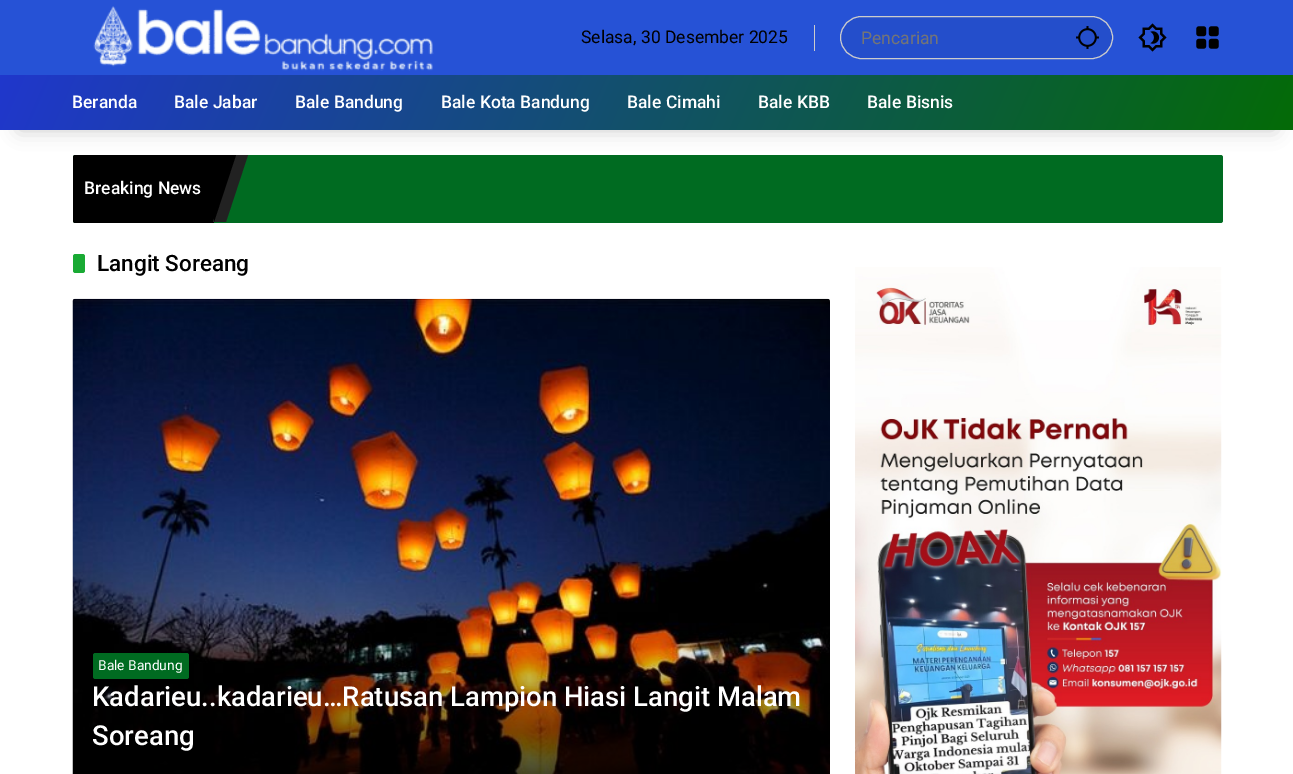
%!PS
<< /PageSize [1293 774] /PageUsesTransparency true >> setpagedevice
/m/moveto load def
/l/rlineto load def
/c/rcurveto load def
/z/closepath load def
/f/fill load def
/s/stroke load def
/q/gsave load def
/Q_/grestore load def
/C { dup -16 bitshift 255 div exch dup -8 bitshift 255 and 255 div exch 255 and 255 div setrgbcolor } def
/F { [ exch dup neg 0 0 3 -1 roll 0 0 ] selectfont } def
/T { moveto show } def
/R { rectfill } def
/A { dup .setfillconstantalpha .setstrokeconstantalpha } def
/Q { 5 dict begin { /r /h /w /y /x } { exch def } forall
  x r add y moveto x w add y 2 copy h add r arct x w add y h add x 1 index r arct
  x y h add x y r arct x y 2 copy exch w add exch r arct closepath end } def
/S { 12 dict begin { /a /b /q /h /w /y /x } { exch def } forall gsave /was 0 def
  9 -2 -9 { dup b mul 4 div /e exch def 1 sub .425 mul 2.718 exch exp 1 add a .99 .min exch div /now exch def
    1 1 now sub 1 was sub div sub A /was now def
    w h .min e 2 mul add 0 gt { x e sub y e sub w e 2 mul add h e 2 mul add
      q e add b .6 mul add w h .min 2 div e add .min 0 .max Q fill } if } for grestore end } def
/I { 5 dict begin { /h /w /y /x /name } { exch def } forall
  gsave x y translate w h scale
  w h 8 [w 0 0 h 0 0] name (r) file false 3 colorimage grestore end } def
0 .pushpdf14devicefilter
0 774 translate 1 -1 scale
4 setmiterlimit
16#FFFFFF C
0 0 1293 774 R
16#2652D6 C
0 0 1293 75 R
(1.rgb) 93 6 341 65 I
16#CCCCCC C
814 25 1 26 R
/Roboto-Regular 17.5 F
16#000000 C
(Selasa, 30 Desember 2025) 581 43 T
16#244ECB C
840.5 16.5 272 42 21 Q q f Q_
16#CCCCCC C
s
16#757575 C
(Pencarian) 861 44 T
(2.rgb) 1076 26 23 23 I
(3.rgb) 1138 23 29 29 I
(4.rgb) 1196 26 23 23 I
16#006B21 C
73 155 1150 68 2.5 Q f
16#000000 C
75.5 155 m 138.5 0 l 0 68 l -138.5 0 l -1.5 0 -2.5 -1 -2.5 -2.5 c 0 -63 l 0 -1.5 1 -2.5 2.5 -2.5 c z f
16#222222 C
235 155 m 13 0 l -22 67 l -13 0 l z f
16#000000 C
214 155 m 22 0 l -22 67 l z f
19 113 1256 17 0 9.5 .2 S
q 0 75 m 1293 0 l 0 55 l -1293 0 l z clip newpath
<< /ShadingType 2 /ColorSpace /DeviceRGB /Coords [1197 347 97 -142] /Extend [true true] /Function << /FunctionType 2 /Domain [0 1] /C0 [.016 .42 .027] /C1 [.125 .216 .8] /N 1 >> >> shfill Q_
/Roboto-Medium 17.5 F
16#FFFFFF C
(Beranda) 72 108 T
(Bale Jabar) 174 108 T
(Bale Bandung) 295 108 T
(Bale Kota Bandung) 441 108 T
(Bale Cimahi) 627 108 T
(Bale KBB) 758 108 T
(Bale Bisnis) 867 108 T
(Breaking News) 84 194 T
16#19AA34 C
73 254 12 19 2.5 Q f
/Roboto-Medium 22.5 F
16#000000 C
(Langit Soreang) 97 271 T
(5.rgb) 72 298 758 476 I
16#006B21 C
93 653 96 26 2.5 Q f
/Roboto-Regular 13.75 F
16#FFFFFF C
(Bale Bandung) 98 670 T
/Roboto-Medium 27.5 F
(Kadarieu..kadarieu…Ratusan Lampion Hiasi Langit Malam) 92 706 T
(Soreang) 92 745 T
(6.rgb) 855 267 367 507 I
.poppdf14devicefilter showpage
